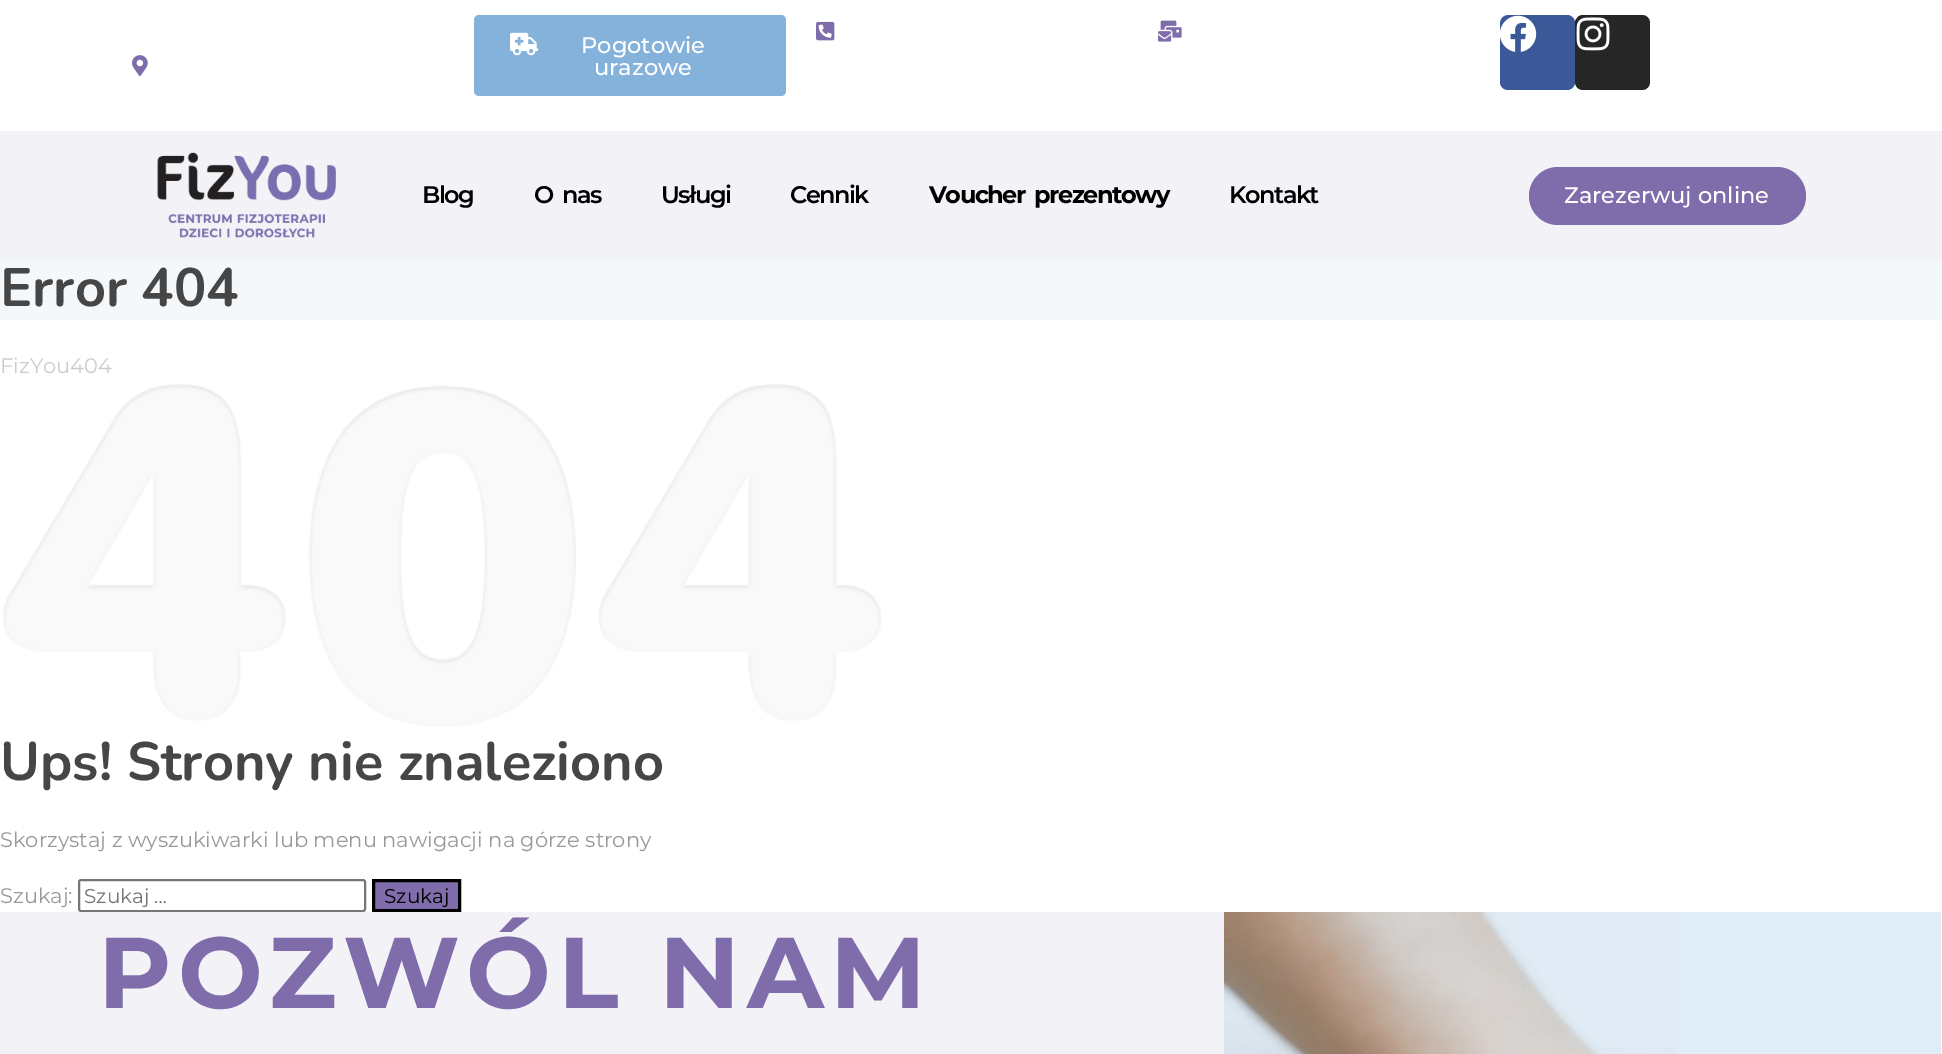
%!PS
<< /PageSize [1942 1054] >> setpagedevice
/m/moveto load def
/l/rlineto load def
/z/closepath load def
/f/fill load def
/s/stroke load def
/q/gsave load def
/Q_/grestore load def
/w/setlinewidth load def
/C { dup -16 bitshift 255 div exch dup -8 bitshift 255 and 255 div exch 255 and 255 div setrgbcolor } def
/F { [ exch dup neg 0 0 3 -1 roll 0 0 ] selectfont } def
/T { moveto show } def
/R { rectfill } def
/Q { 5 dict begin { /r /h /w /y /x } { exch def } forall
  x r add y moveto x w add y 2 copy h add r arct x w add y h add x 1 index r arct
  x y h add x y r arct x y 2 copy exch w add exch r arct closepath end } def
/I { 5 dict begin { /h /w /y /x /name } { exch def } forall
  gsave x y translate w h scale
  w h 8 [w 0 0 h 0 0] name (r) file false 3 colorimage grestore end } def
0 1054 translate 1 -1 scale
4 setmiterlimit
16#FFFFFF C
0 0 1942 1054 R
16#E1EDF6 C
1675 912 266 142 R
(1.rgb) 816 21 19 20 I
(2.rgb) 1158 20 24 22 I
16#3B5998 C
1500 15 75 75 8 Q f
(3.rgb) 1500 15 37 37 I
16#262626 C
1575 15 75 75 8 Q f
(4.rgb) 1576 17 34 34 I
(5.rgb) 132 55 16 22 I
16#84B2DB C
474 15 312 81 5 Q f
(6.rgb) 510 32 29 24 I
/Montserrat-Medium 22.5 F
16#FFFFFF C
(Pogotowie) 581 53 T
(urazowe) 594 75 T
16#F3F2F7 C
0 131 1942 129 R
(7.rgb) 157 152 179 86 I
/Montserrat-SemiBold 24 F
16#000000 C
422 203 m -1.5 0 (Blog) ashow
534 203 m 4 0 32 -1.5 0 (O nas) awidthshow
661 203 m -1.5 0 (Usługi) ashow
790 203 m -1.5 0 (Cennik) ashow
/Montserrat-Bold 24 F
929 203 m 4 0 32 -1.5 0 (Voucher prezentowy) awidthshow
/Montserrat-SemiBold 24 F
1229 203 m -1.5 0 (Kontakt) ashow
16#7F6DAB C
1529 167 277 58 29 Q f
/Montserrat-Medium 22.5 F
16#FFFFFF C
(Zarezerwuj online) 1564 203 T
16#F5F8FB C
0 260 1942 60 R
/Nunito-Bold 54 F
16#464646 C
(Error 404) 0 306 T
/Montserrat-Regular 21 F
16#CCCCCC C
(FizYou404) 0 373 T
(8.rgb) 3 384 879 343 I
/Nunito-Bold 54 F
16#464646 C
(Ups! Strony nie znaleziono) 0 780 T
/Montserrat-Regular 21 F
16#999999 C
(Skorzystaj z wyszukiwarki lub menu nawigacji na górze strony) 0 847 T
(Szukaj:) 0 903 T
16#767676 C
2 w
79 880 286 31 2 Q s
/Montserrat-Regular 20 F
16#757575 C
(Szukaj …) 84 903 T
16#7F6DAB C
373.5 880.5 m 86 0 l 0 30 l -86 0 l z q f Q_
16#000000 C
3 w
s
(Szukaj) 384 903 T
16#F3F2F7 C
0 912 1224 142 R
/Montserrat-Bold 100.5 F
16#7F6DAB C
98 1008 m 6.4 0 (POZWÓL NAM) ashow
(9.rgb) 1224 912 451 142 I
showpage
